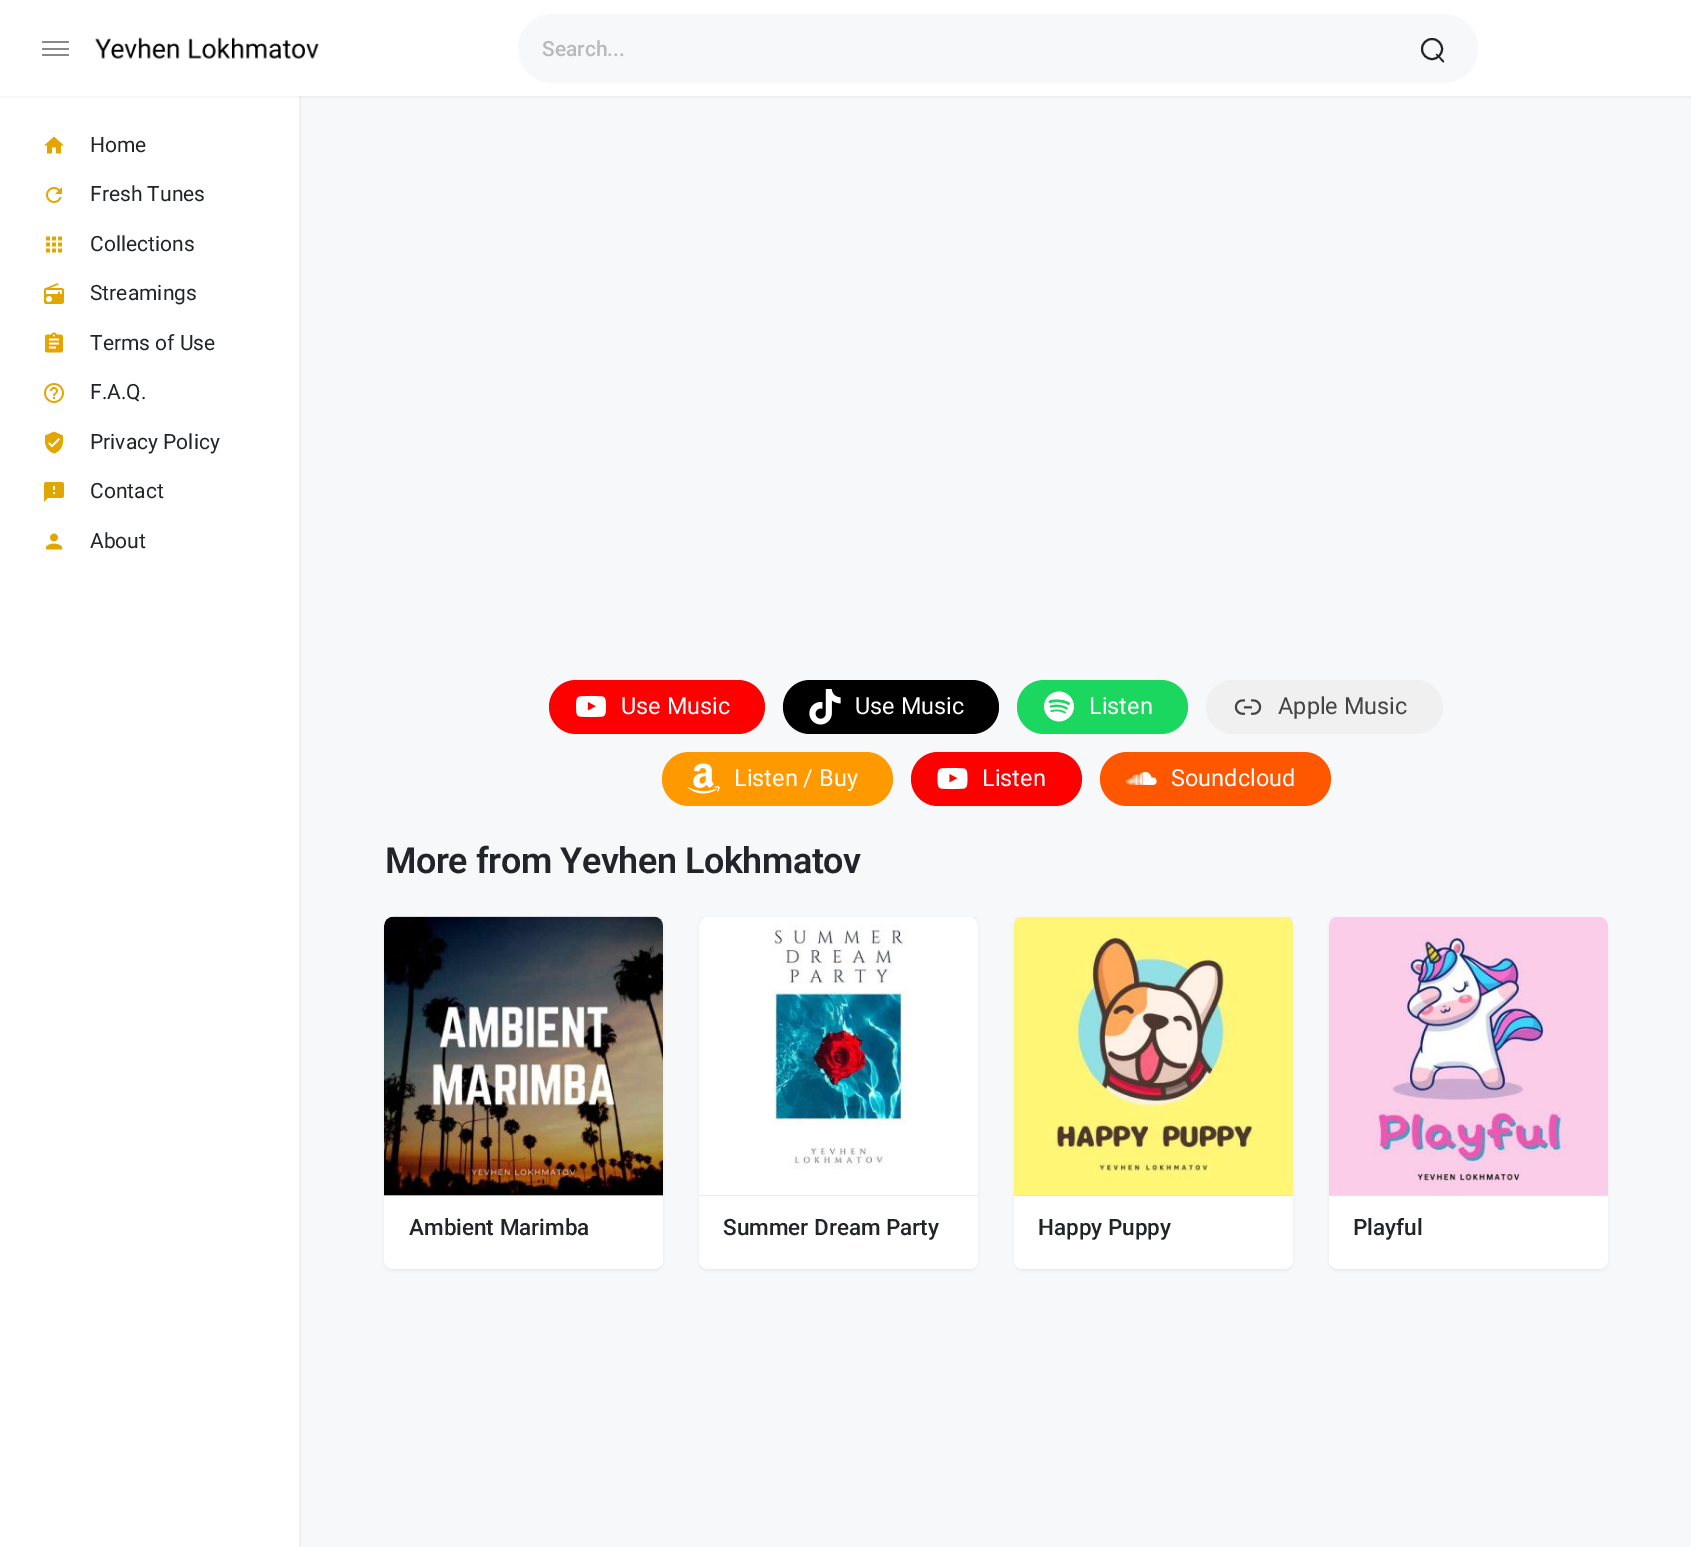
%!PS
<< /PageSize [1691 1547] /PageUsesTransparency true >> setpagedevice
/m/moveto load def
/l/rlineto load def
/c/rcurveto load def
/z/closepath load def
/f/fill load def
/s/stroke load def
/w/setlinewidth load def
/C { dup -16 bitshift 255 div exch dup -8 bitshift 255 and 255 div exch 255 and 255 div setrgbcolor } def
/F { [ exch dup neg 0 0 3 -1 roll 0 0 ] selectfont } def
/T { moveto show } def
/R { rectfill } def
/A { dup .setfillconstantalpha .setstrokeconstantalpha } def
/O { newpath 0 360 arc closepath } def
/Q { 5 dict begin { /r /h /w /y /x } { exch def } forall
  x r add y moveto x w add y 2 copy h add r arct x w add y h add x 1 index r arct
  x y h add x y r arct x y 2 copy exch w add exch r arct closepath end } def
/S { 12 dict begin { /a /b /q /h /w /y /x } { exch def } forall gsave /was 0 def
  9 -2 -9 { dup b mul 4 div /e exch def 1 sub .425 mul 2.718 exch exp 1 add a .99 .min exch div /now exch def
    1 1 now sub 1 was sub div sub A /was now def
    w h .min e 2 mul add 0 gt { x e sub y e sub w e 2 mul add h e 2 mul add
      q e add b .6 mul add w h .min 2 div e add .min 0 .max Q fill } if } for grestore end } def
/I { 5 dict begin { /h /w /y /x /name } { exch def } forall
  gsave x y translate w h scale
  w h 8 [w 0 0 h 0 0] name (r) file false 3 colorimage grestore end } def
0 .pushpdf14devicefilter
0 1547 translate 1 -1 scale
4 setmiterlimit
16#F7F8F9 C
0 0 1691 1547 R
16#EBEDEF C
300 96 1 1451 R
16#FFFFFF C
0 96 299 1451 R
16#F3F4F5 C
299 96 1 1451 R
16#828C96 C
0 2 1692 96 0 1 .1 S
16#FFFFFF C
0 0 1691 96 R
16#888888 C
42 48 27 2 1 Q f
42 41 27 2 1 Q f
42 54 27 2 1 Q f
(1.rgb) 95 37 224 22 I
16#F7F8F9 C
518 14 960 69 34.5 Q f
/Roboto-Medium 21 F
16#B7B9BB C
(Search...) 542 56 T
16#212529 C
2 w
1432 49 10 O s
1437 54 m 1 1 8 7 7 8 c -1 1.5 -4 -3 -4.5 -3.5 c -3.5 -3.5 l -.5 -.5 .5 -1.5 1 -1 c z f
(2.rgb) 44 136 20 18 I
/Roboto-Regular 21 F
(Home) 90 152 T
(3.rgb) 46 187 16 16 I
(Fresh Tunes) 90 201 T
(4.rgb) 46 236 16 17 I
(Collections) 90 251 T
(5.rgb) 44 283 20 21 I
(Streamings) 90 300 T
(6.rgb) 45 332 18 21 I
(Terms of Use) 90 350 T
(7.rgb) 44 383 20 20 I
(F.A.Q.) 90 399 T
(8.rgb) 45 431 18 23 I
(Privacy Policy) 90 449 T
(9.rgb) 44 482 20 20 I
(Contact) 90 498 T
(10.rgb) 46 533 16 17 I
(About) 90 548 T
16#FF0000 C
549 680 216 54 27 Q f
(11.rgb) 576 695 30 23 I
/Roboto-Regular 23.5 F
16#FFFFFF C
(Use Music) 621 714 T
16#000000 C
783 680 216 54 27 Q f
(12.rgb) 809 689 32 36 I
16#FFFFFF C
(Use Music) 855 714 T
16#1BD760 C
1017 680 171 54 27 Q f
(13.rgb) 1044 691 30 31 I
16#FFFFFF C
(Listen) 1089 714 T
16#F0F0F0 C
1206 680 237 54 27 Q f
(14.rgb) 1234 699 28 16 I
16#444444 C
(Apple Music) 1278 714 T
16#FF9900 C
662 752 231 54 27 Q f
(15.rgb) 687 763 33 31 I
16#FFFFFF C
(Listen / Buy) 734 786 T
16#FF0000 C
911 752 171 54 27 Q f
(16.rgb) 937 767 31 23 I
16#FFFFFF C
(Listen) 982 786 T
16#FF5600 C
1100 752 231 54 27 Q f
(17.rgb) 1126 771 31 14 I
16#FFFFFF C
(Soundcloud) 1171 786 T
/Roboto-SemiBold 36 F
16#212529 C
385 873 m -.45 0 (More from Yevhen Lokhmatov) ashow
16#EAECEE C
663 925.5 m 0 -3.5 -.5 -6.5 -3.5 -8.5 c -2.5 0 l 3.5 1 6 4.5 6 8.5 c z f
16#000000 C
384 918 279 353 9 1.5 .05 S
16#FFFFFF C
384 917 279 352 9 Q f
0.2 A
16#6E7882 C
393 917 m 261 0 l 5 0 9 4 9 9 c 0 270 l -279 0 l 0 -270 l 0 -5 4 -9 9 -9 c z f
1 A
(18.rgb) 384 916 279 280 I
/Roboto-Medium 22.5 F
16#212529 C
(Ambient Marimba) 409 1235 T
16#EAECEE C
705 917 m -3 0 l -2 2 -3 5 -3 9 c 0 -4 3 -8 6 -9 c z 975 917 m -3 0 l 3 1 6 5 6 9 c 0 -4 -1 -7 -3 -9 c z eofill
16#000000 C
699 918 279 353 9 1.5 .05 S
16#FFFFFF C
699 917 279 352 9 Q f
0.2 A
16#6E7882 C
708 917 m 261 0 l 5 0 9 4 9 9 c 0 270 l -279 0 l 0 -270 l 0 -5 4 -9 9 -9 c z f
1 A
(19.rgb) 699 917 279 279 I
16#212529 C
(Summer Dream Party) 723 1235 T
16#EAECEE C
1020 917 m -3 0 l -2 2 -3 5 -3 9 c 0 -4 3 -8 6 -9 c z 1290 917 m -3 0 l 3 1 6 5 6 9 c 0 -4 -1 -7 -3 -9 c z eofill
16#000000 C
1014 918 279 353 9 1.5 .05 S
16#FFFFFF C
1014 917 279 352 9 Q f
0.2 A
16#6E7882 C
1023 917 m 261 0 l 5 0 9 4 9 9 c 0 270 l -279 0 l 0 -270 l 0 -5 4 -9 9 -9 c z f
1 A
(20.rgb) 1014 916 279 280 I
16#212529 C
(Happy Puppy) 1038 1235 T
16#EAECEE C
1335 917 m -2.5 0 l -3 2 -3.5 5 -3.5 8.5 c 0 -4 2.5 -7.5 6 -8.5 c z f
16#000000 C
1329 918 279 353 9 1.5 .05 S
16#FFFFFF C
1329 917 279 352 9 Q f
0.2 A
16#6E7882 C
1338 917 m 261 0 l 5 0 9 4 9 9 c 0 270 l -279 0 l 0 -270 l 0 -5 4 -9 9 -9 c z f
1 A
(21.rgb) 1329 916 279 280 I
16#212529 C
(Playful) 1353 1235 T
.poppdf14devicefilter showpage
